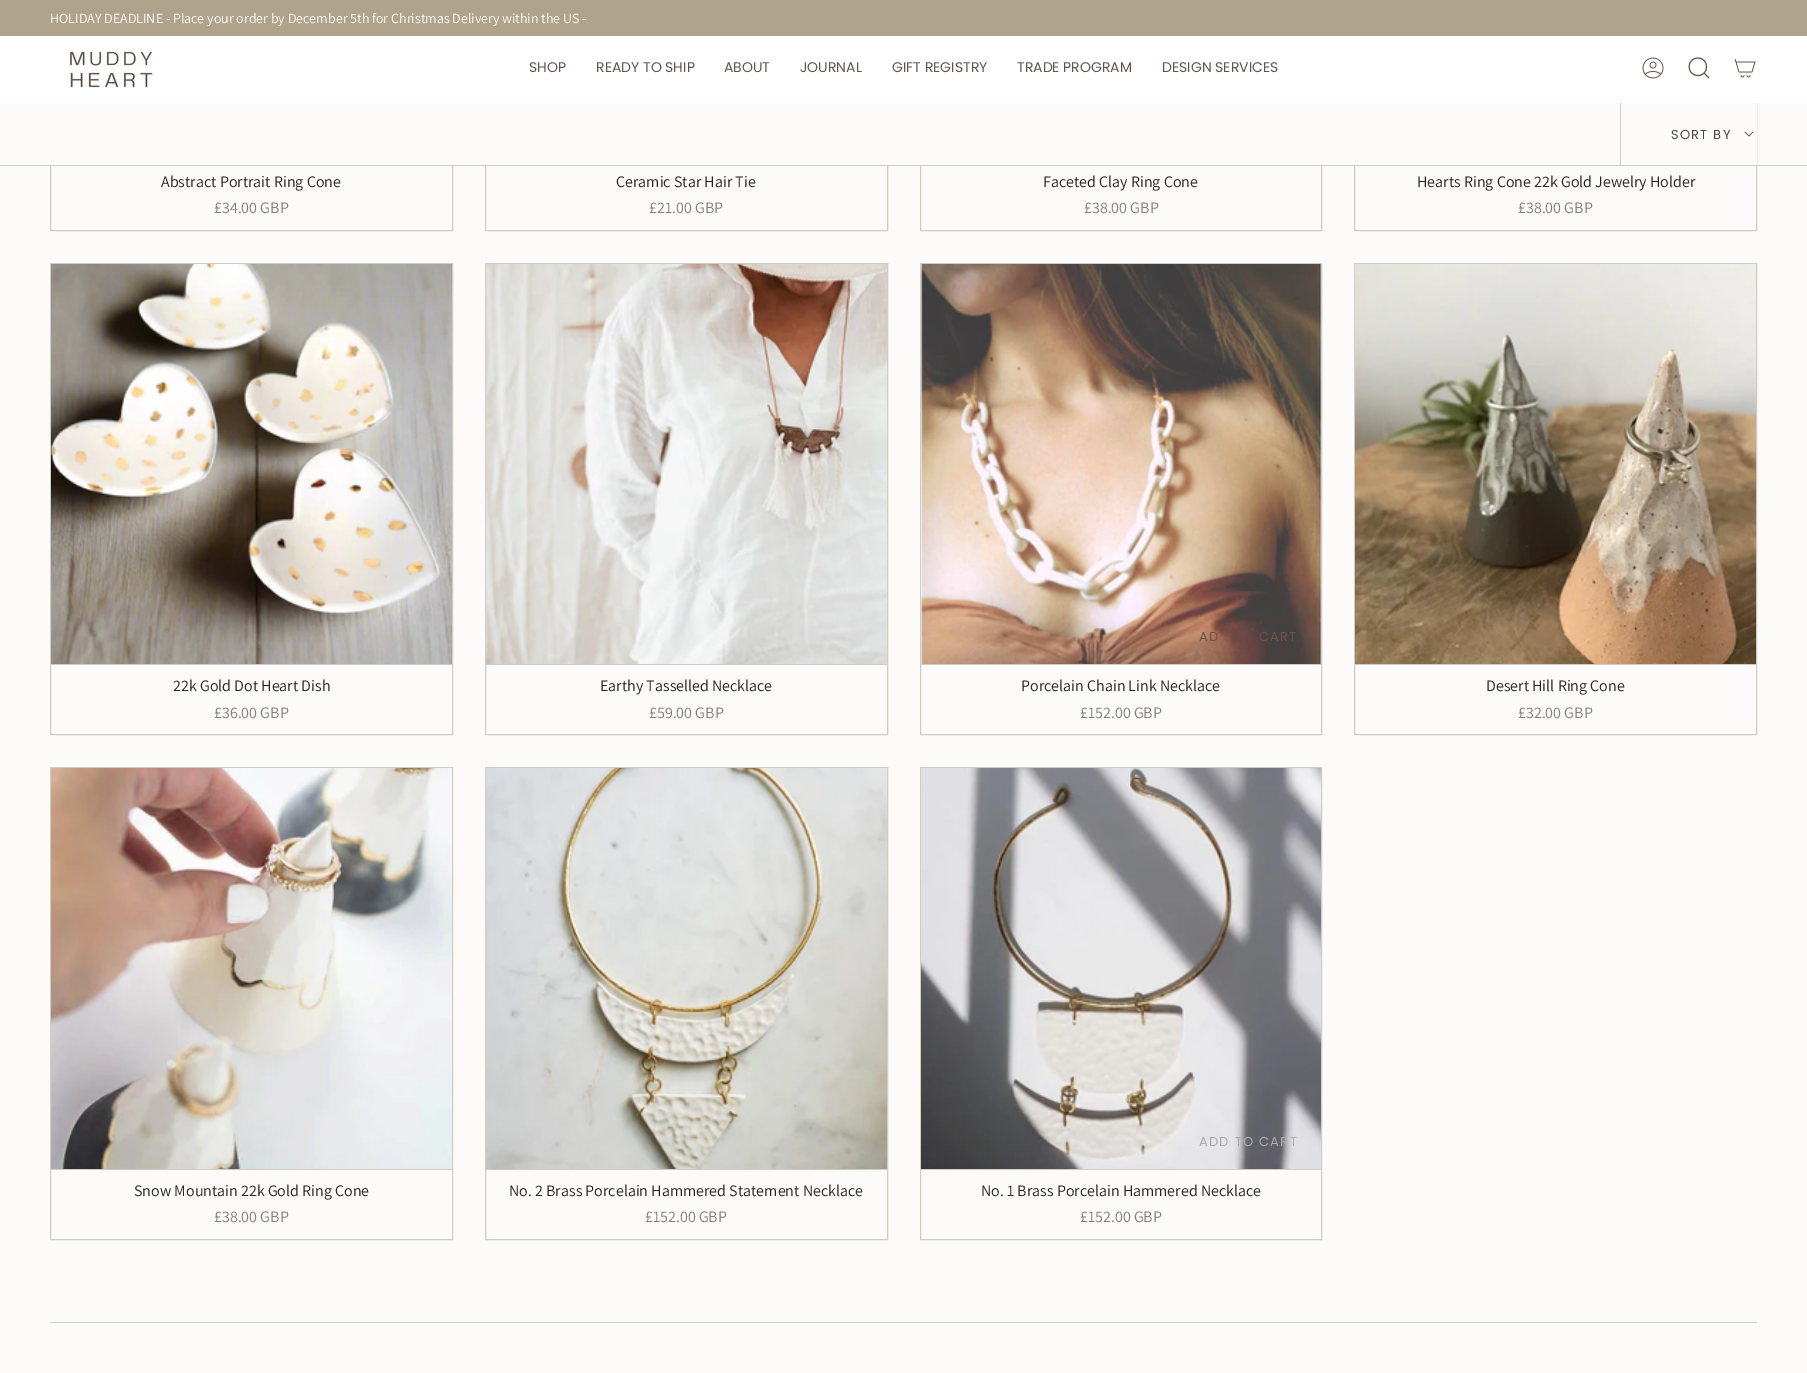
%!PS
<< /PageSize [1807 1373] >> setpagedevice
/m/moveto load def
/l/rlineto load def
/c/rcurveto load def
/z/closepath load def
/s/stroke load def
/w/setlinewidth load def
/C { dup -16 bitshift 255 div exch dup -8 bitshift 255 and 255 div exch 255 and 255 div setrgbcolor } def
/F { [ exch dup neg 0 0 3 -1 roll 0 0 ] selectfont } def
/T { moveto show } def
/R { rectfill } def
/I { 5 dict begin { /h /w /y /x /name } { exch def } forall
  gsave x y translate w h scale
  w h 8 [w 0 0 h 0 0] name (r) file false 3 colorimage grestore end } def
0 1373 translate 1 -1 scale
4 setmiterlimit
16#FCFBF9 C
0 0 1807 1373 R
16#D1CDC4 C
50.5 -.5 402 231 rectstroke
485.5 -.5 402 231 rectstroke
920.5 -.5 401 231 rectstroke
1354.5 -.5 402 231 rectstroke
16#B0A38B C
0 0 1807 36 R
/Assistant-Regular 14 F
16#FFFFFF C
(HOLIDAY DEADLINE - Place your order by December 5th for Christmas Delivery within the US -) 50 23 T
0 36 1807 67 R
(1.rgb) 69 49 85 40 I
/Poppins-Regular 14 F
16#63544C C
(SHOP) 529 72 T
(READY TO SHIP) 596 72 T
(ABOUT) 724 72 T
(JOURNAL) 800 72 T
(GIFT REGISTRY) 892 72 T
(TRADE PROGRAM) 1017 72 T
(DESIGN SERVICES) 1162 72 T
(2.rgb) 1642 57 22 22 I
1698 58 m 11.5 0 11.5 18 -.5 17.5 c -11.5 -.5 -11 -17.5 .5 -17.5 c z 1704 73 m 5 5 l s
(3.rgb) 1734 59 22 19 I
16#FCFBF9 C
50 103 1707 62 R
16#D1CDC4 C
0 165 1807 1 R
1620 103 1 62 R
/Poppins-Regular 13 F
16#524842 C
1671 139 m 1.25 0 (SORT BY) ashow
.7 w
1 setlinecap
1 setlinejoin
1745 132 m 4 4 l 4 -4 l s
/Assistant-Regular 16 F
16#2B221D C
(Abstract Portrait Ring Cone) 161 187 T
16#857E79 C
(£34.00 GBP) 214 213 T
16#2B221D C
(Ceramic Star Hair Tie) 616 187 T
16#857E79 C
(£21.00 GBP) 649 213 T
16#2B221D C
(Faceted Clay Ring Cone) 1043 187 T
16#857E79 C
(£38.00 GBP) 1084 213 T
16#2B221D C
(Hearts Ring Cone 22k Gold Jewelry Holder) 1417 187 T
16#857E79 C
(£38.00 GBP) 1518 213 T
16#D1CDC4 C
1 w
0 setlinecap
0 setlinejoin
50.5 263.5 402 471 rectstroke
51 664 401 1 R
(4.rgb) 51 264 401 400 I
16#2B221D C
(22k Gold Dot Heart Dish) 173 691 T
16#857E79 C
(£36.00 GBP) 214 718 T
16#D1CDC4 C
485.5 263.5 402 471 rectstroke
486 664 401 1 R
(5.rgb) 486 264 401 400 I
16#2B221D C
(Earthy Tasselled Necklace) 600 691 T
16#857E79 C
(£59.00 GBP) 649 718 T
16#D1CDC4 C
920.5 263.5 401 471 rectstroke
921 664 400 1 R
(6.rgb) 921 264 400 400 I
/Poppins-Regular 13 F
16#6E5249 C
1199 641 m 1.25 0 (AD) ashow
1259 641 m 1.25 0 (CART) ashow
/Assistant-Regular 16 F
16#2B221D C
(Porcelain Chain Link Necklace) 1021 691 T
16#857E79 C
(£152.00 GBP) 1080 718 T
16#D1CDC4 C
1354.5 263.5 402 471 rectstroke
1355 664 401 1 R
(7.rgb) 1355 264 401 400 I
16#2B221D C
(Desert Hill Ring Cone) 1486 691 T
16#857E79 C
(£32.00 GBP) 1518 718 T
16#D1CDC4 C
50.5 767.5 402 472 rectstroke
51 1169 401 1 R
(8.rgb) 51 768 401 401 I
16#2B221D C
(Snow Mountain 22k Gold Ring Cone) 134 1196 T
16#857E79 C
(£38.00 GBP) 214 1222 T
16#D1CDC4 C
485.5 767.5 402 472 rectstroke
486 1169 401 1 R
(9.rgb) 486 768 401 401 I
16#2B221D C
(No. 2 Brass Porcelain Hammered Statement Necklace) 509 1196 T
16#857E79 C
(£152.00 GBP) 645 1222 T
16#D1CDC4 C
920.5 767.5 401 472 rectstroke
921 1169 400 1 R
(10.rgb) 921 768 400 401 I
/Poppins-Regular 13 F
16#ABABAF C
1199 1146 m 1.25 0 (ADD TO CART) ashow
/Assistant-Regular 16 F
16#2B221D C
(No. 1 Brass Porcelain Hammered Necklace) 981 1196 T
16#857E79 C
(£152.00 GBP) 1080 1222 T
16#D1CDC4 C
50 1322 1707 1 R
showpage
